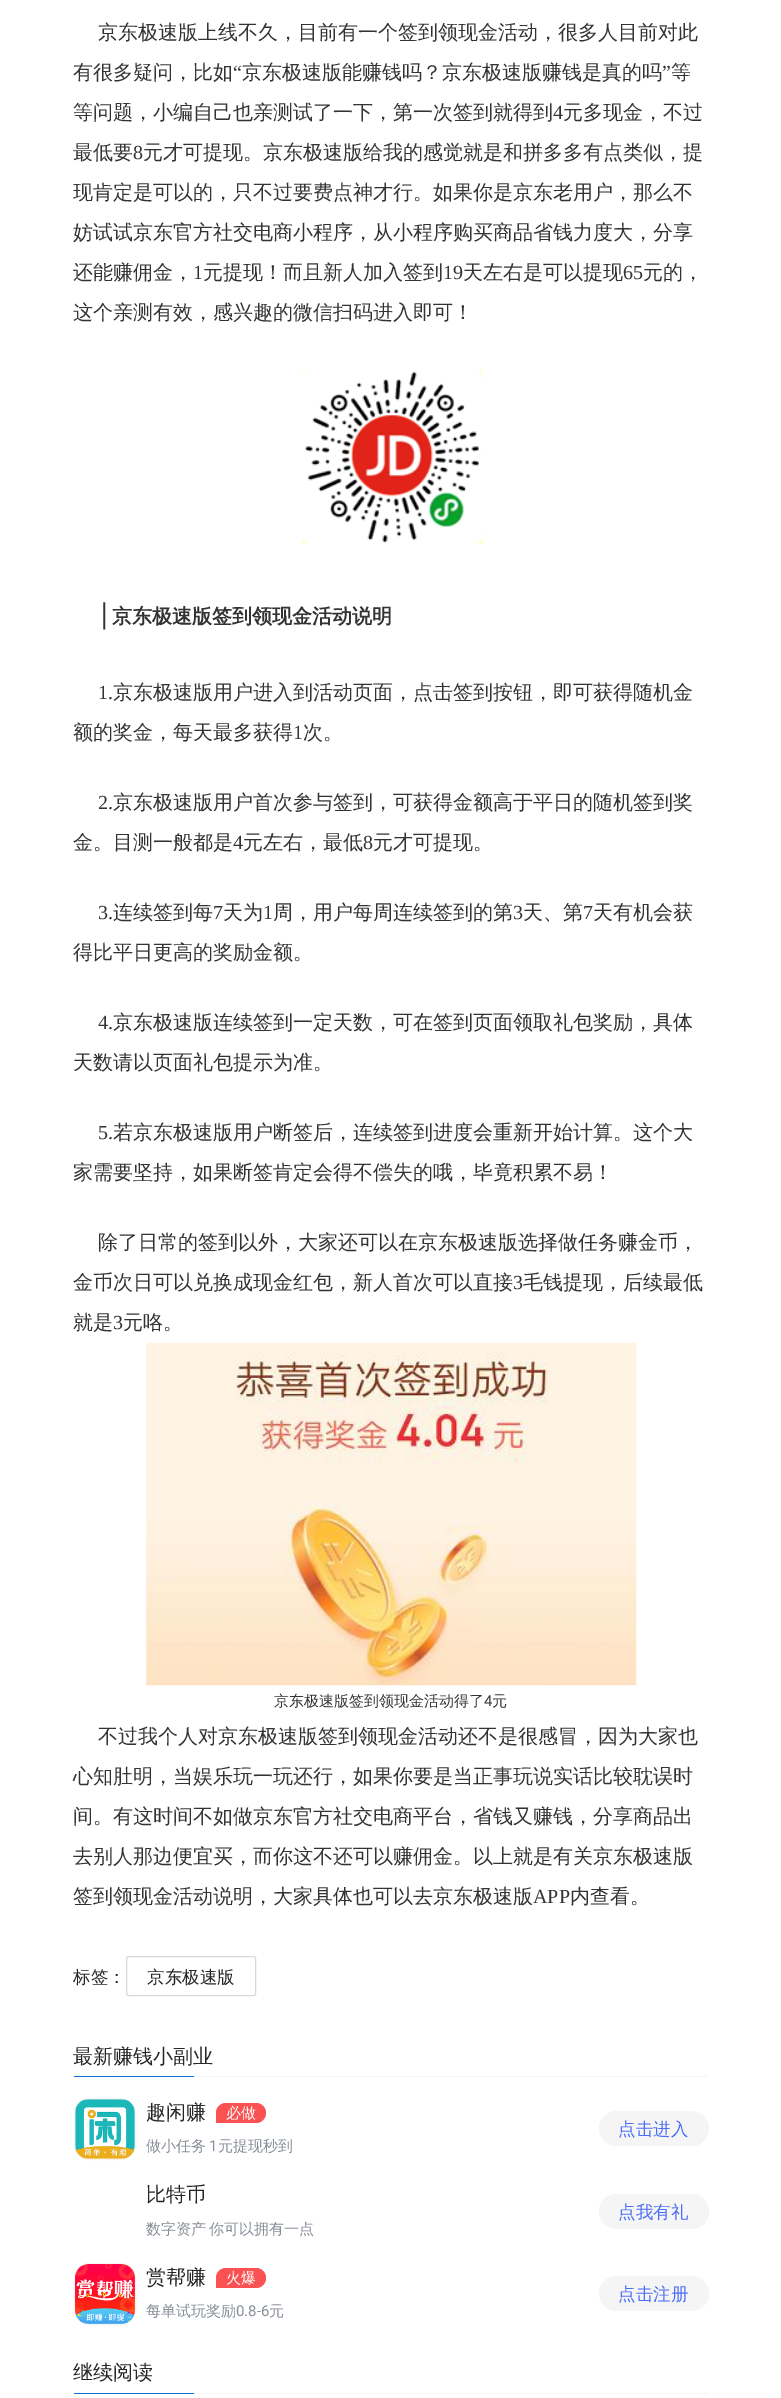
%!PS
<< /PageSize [781 2398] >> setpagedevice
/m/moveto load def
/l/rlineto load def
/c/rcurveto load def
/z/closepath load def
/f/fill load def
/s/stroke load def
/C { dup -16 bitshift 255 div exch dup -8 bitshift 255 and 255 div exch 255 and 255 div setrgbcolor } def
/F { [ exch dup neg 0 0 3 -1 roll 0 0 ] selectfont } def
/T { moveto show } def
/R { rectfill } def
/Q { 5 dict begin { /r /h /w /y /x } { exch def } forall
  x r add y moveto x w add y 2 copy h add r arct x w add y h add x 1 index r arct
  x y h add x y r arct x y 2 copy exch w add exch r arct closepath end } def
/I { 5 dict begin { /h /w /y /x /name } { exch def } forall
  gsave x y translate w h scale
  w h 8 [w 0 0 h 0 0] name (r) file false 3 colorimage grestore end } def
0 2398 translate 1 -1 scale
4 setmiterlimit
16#FFFFFF C
0 0 781 2398 R
/WenQuanYiZenHei-Medium 20 F
16#333333 C
(京东极速版上线不久，目前有一个签到领现金活动，很多人目前对此) 98 39 T
(有很多疑问，比如) 73 79 T
/LiberationSerif-Regular 20 F
(“) 233 79 T
/WenQuanYiZenHei-Medium 20 F
(京东极速版能赚钱吗？京东极速版赚钱是真的吗) 242 79 T
/LiberationSerif-Regular 20 F
(”) 662 79 T
/WenQuanYiZenHei-Medium 20 F
(等) 671 79 T
(等问题，小编自己也亲测试了一下，第一次签到就得到) 73 119 T
/LiberationSerif-Regular 20 F
(4) 553 119 T
/WenQuanYiZenHei-Medium 20 F
(元多现金，不过) 563 119 T
(最低要) 73 159 T
/LiberationSerif-Regular 20 F
(8) 133 159 T
/WenQuanYiZenHei-Medium 20 F
(元才可提现。京东极速版给我的感觉就是和拼多多有点类似，提) 143 159 T
(现肯定是可以的，只不过要费点神才行。如果你是京东老用户，那么不) 73 199 T
(妨试试京东官方社交电商小程序，从小程序购买商品省钱力度大，分享) 73 239 T
(还能赚佣金，) 73 279 T
/LiberationSerif-Regular 20 F
(1) 193 279 T
/WenQuanYiZenHei-Medium 20 F
(元提现！而且新人加入签到) 203 279 T
/LiberationSerif-Regular 20 F
(19) 443 279 T
/WenQuanYiZenHei-Medium 20 F
(天左右是可以提现) 463 279 T
/LiberationSerif-Regular 20 F
(65) 623 279 T
/WenQuanYiZenHei-Medium 20 F
(元的，) 643 279 T
(这个亲测有效，感兴趣的微信扫码进入即可！) 73 319 T
(1.rgb) 302 369 181 176 I
/LiberationSerif-Bold 30 F
(|) 101 623 T
/WenQuanYiZenHei-Bold 20 F
(京东极速版签到领现金活动说明) 112 623 T
/LiberationSerif-Regular 20 F
(1.) 98 699 T
/WenQuanYiZenHei-Medium 20 F
(京东极速版用户进入到活动页面，点击签到按钮，即可获得随机金) 113 699 T
(额的奖金，每天最多获得) 73 739 T
/LiberationSerif-Regular 20 F
(1) 293 739 T
/WenQuanYiZenHei-Medium 20 F
(次。) 303 739 T
/LiberationSerif-Regular 20 F
(2.) 98 809 T
/WenQuanYiZenHei-Medium 20 F
(京东极速版用户首次参与签到，可获得金额高于平日的随机签到奖) 113 809 T
(金。目测一般都是) 73 849 T
/LiberationSerif-Regular 20 F
(4) 233 849 T
/WenQuanYiZenHei-Medium 20 F
(元左右，最低) 243 849 T
/LiberationSerif-Regular 20 F
(8) 363 849 T
/WenQuanYiZenHei-Medium 20 F
(元才可提现。) 373 849 T
/LiberationSerif-Regular 20 F
(3.) 98 919 T
/WenQuanYiZenHei-Medium 20 F
(连续签到每) 113 919 T
/LiberationSerif-Regular 20 F
(7) 213 919 T
/WenQuanYiZenHei-Medium 20 F
(天为) 223 919 T
/LiberationSerif-Regular 20 F
(1) 263 919 T
/WenQuanYiZenHei-Medium 20 F
(周，用户每周连续签到的第) 273 919 T
/LiberationSerif-Regular 20 F
(3) 513 919 T
/WenQuanYiZenHei-Medium 20 F
(天、第) 523 919 T
/LiberationSerif-Regular 20 F
(7) 583 919 T
/WenQuanYiZenHei-Medium 20 F
(天有机会获) 593 919 T
(得比平日更高的奖励金额。) 73 959 T
/LiberationSerif-Regular 20 F
(4.) 98 1029 T
/WenQuanYiZenHei-Medium 20 F
(京东极速版连续签到一定天数，可在签到页面领取礼包奖励，具体) 113 1029 T
(天数请以页面礼包提示为准。) 73 1069 T
/LiberationSerif-Regular 20 F
(5.) 98 1139 T
/WenQuanYiZenHei-Medium 20 F
(若京东极速版用户断签后，连续签到进度会重新开始计算。这个大) 113 1139 T
(家需要坚持，如果断签肯定会得不偿失的哦，毕竟积累不易！) 73 1179 T
(除了日常的签到以外，大家还可以在京东极速版选择做任务赚金币，) 98 1249 T
(金币次日可以兑换成现金红包，新人首次可以直接) 73 1289 T
/LiberationSerif-Regular 20 F
(3) 513 1289 T
/WenQuanYiZenHei-Medium 20 F
(毛钱提现，后续最低) 523 1289 T
(就是) 73 1329 T
/LiberationSerif-Regular 20 F
(3) 113 1329 T
/WenQuanYiZenHei-Medium 20 F
(元咯。) 123 1329 T
(2.rgb) 146 1342 491 344 I
/WenQuanYiZenHei-Medium 15 F
(京东极速版签到领现金活动得了) 274 1706 T
/Roboto-Regular 15 F
(4) 484 1706 T
/WenQuanYiZenHei-Medium 15 F
(元) 492 1706 T
/WenQuanYiZenHei-Medium 20 F
(不过我个人对京东极速版签到领现金活动还不是很感冒，因为大家也) 98 1743 T
(心知肚明，当娱乐玩一玩还行，如果你要是当正事玩说实话比较耽误时) 73 1783 T
(间。有这时间不如做京东官方社交电商平台，省钱又赚钱，分享商品出) 73 1823 T
(去别人那边便宜买，而你这不还可以赚佣金。以上就是有关京东极速版) 73 1863 T
(签到领现金活动说明，大家具体也可以去京东极速版) 73 1903 T
/LiberationSerif-Regular 20 F
(APP) 533 1903 T
/WenQuanYiZenHei-Medium 20 F
(内查看。) 570 1903 T
/WenQuanYiZenHei-Medium 17.5 F
16#262626 C
(标签：) 73 1983 T
16#D9D9D9 C
126.5 1956.5 129 39 2 Q s
16#262626 C
(京东极速版) 147 1983 T
16#F5F5F5 C
194 2076 515 1 R
/WenQuanYiZenHei-Medium 20 F
16#262626 C
(最新赚钱小副业) 73 2063 T
16#096DD9 C
74 2076 120 1 R
16#F5F5F5 C
74.5 2098.5 61 61 14.5 Q s
(3.rgb) 75 2099 60 60 I
16#262626 C
(趣闲赚) 146 2119 T
16#FA5252 C
226 2103 m 30 0 l 5.5 0 10 4.5 10 10 c 0 5.5 -4.5 10 -10 10 c -40 0 l 0 -10 l 0 -5.5 4.5 -10 10 -10 c z f
/WenQuanYiZenHei-Medium 15 F
16#FFFFFF C
(必做) 226 2118 T
16#868E96 C
(做小任务) 146 2151 T
/Roboto-Regular 15 F
(1) 209 2151 T
/WenQuanYiZenHei-Medium 15 F
(元提现秒到) 218 2151 T
16#F5F5F5 C
599 2111 110 35 17.5 Q f
/WenQuanYiZenHei-Medium 17.5 F
16#4C6EF5 C
(点击进入) 618 2135 T
/WenQuanYiZenHei-Medium 20 F
16#262626 C
(比特币) 146 2201 T
/WenQuanYiZenHei-Medium 15 F
16#868E96 C
146 2234 m -1 0 32 (数字资产 你可以拥有一点) widthshow
16#F5F5F5 C
599 2194 110 35 17.5 Q f
/WenQuanYiZenHei-Medium 17.5 F
16#4C6EF5 C
(点我有礼) 618 2218 T
16#F5F5F5 C
74.5 2263.5 61 61 14.5 Q s
(4.rgb) 75 2264 60 60 I
/WenQuanYiZenHei-Medium 20 F
16#262626 C
(赏帮赚) 146 2284 T
16#FA5252 C
226 2268 m 30 0 l 5.5 0 10 4.5 10 10 c 0 5.5 -4.5 10 -10 10 c -40 0 l 0 -10 l 0 -5.5 4.5 -10 10 -10 c z f
/WenQuanYiZenHei-Medium 15 F
16#FFFFFF C
(火爆) 226 2283 T
16#868E96 C
(每单试玩奖励) 146 2316 T
/Roboto-Regular 15 F
(0.8-6) 236 2316 T
/WenQuanYiZenHei-Medium 15 F
(元) 269 2316 T
16#F5F5F5 C
599 2276 110 35 17.5 Q f
/WenQuanYiZenHei-Medium 17.5 F
16#4C6EF5 C
(点击注册) 618 2300 T
16#F5F5F5 C
194 2393 515 1 R
/WenQuanYiZenHei-Medium 20 F
16#262626 C
(继续阅读) 73 2379 T
16#096DD9 C
74 2393 120 1 R
showpage
